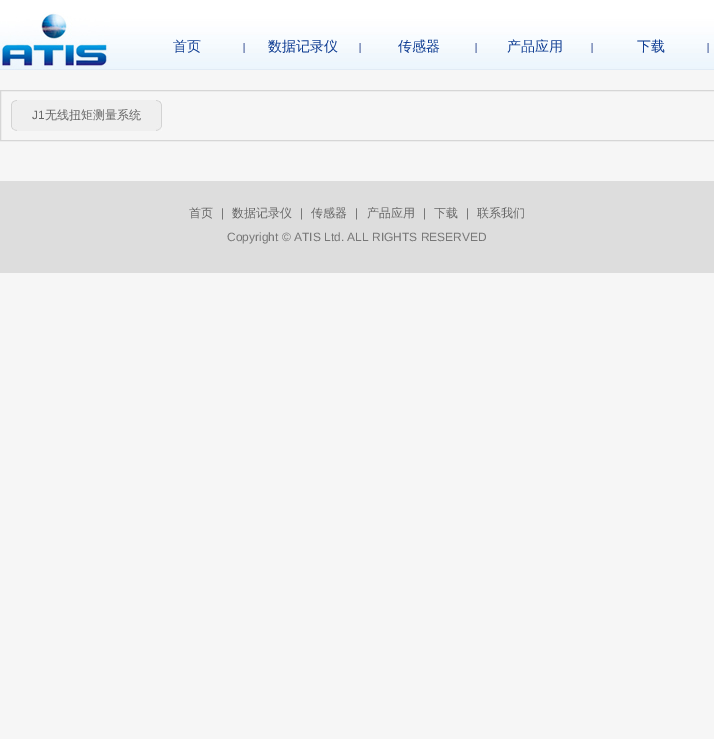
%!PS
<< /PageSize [714 739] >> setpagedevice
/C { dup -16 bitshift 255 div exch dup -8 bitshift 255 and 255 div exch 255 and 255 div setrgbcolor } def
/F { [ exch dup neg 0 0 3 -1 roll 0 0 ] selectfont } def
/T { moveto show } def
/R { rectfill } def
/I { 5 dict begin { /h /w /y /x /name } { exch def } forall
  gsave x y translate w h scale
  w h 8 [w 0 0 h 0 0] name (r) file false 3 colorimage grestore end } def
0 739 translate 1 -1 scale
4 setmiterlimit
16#F6F6F6 C
0 0 714 739 R
(1.rgb) 0 0 714 70 I
(2.rgb) 0 12 110 58 I
(3.rgb) 243 43 2 10 I
/WenQuanYiZenHei-Medium 14 F
16#0F3D93 C
(首页) 173 51 T
(3.rgb) 359 43 2 10 I
(数据记录仪) 268 51 T
(3.rgb) 475 43 2 10 I
(传感器) 398 51 T
(3.rgb) 591 43 2 10 I
(产品应用) 507 51 T
(3.rgb) 707 43 2 10 I
(下载) 637 51 T
16#D6D6D6 C
.5 90.5 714 50 rectstroke
16#EFEFEF C
17 100 139 31 R
(4.rgb) 11 100 6 31 I
/LiberationSans-Regular 12 F
16#666666 C
(J1) 32 119 T
/WenQuanYiZenHei-Medium 12 F
(无线扭矩测量系统) 45 119 T
(5.rgb) 156 100 6 31 I
16#DDDDDD C
0 181 714 92 R
16#666666 C
(首页) 189 217 T
/LiberationSans-Regular 12 F
16#777777 C
(|) 221 217 T
/WenQuanYiZenHei-Medium 12 F
16#666666 C
(数据记录仪) 232 217 T
/LiberationSans-Regular 12 F
16#777777 C
(|) 300 217 T
/WenQuanYiZenHei-Medium 12 F
16#666666 C
(传感器) 311 217 T
/LiberationSans-Regular 12 F
16#777777 C
(|) 355 217 T
/WenQuanYiZenHei-Medium 12 F
16#666666 C
(产品应用) 367 217 T
/LiberationSans-Regular 12 F
16#777777 C
(|) 423 217 T
/WenQuanYiZenHei-Medium 12 F
16#666666 C
(下载) 434 217 T
/LiberationSans-Regular 12 F
16#777777 C
(|) 466 217 T
/WenQuanYiZenHei-Medium 12 F
16#666666 C
(联系我们) 477 217 T
/LiberationSans-Regular 12 F
16#777777 C
(Copyright © ATIS Ltd. ALL RIGHTS RESERVED) 227 241 T
showpage
